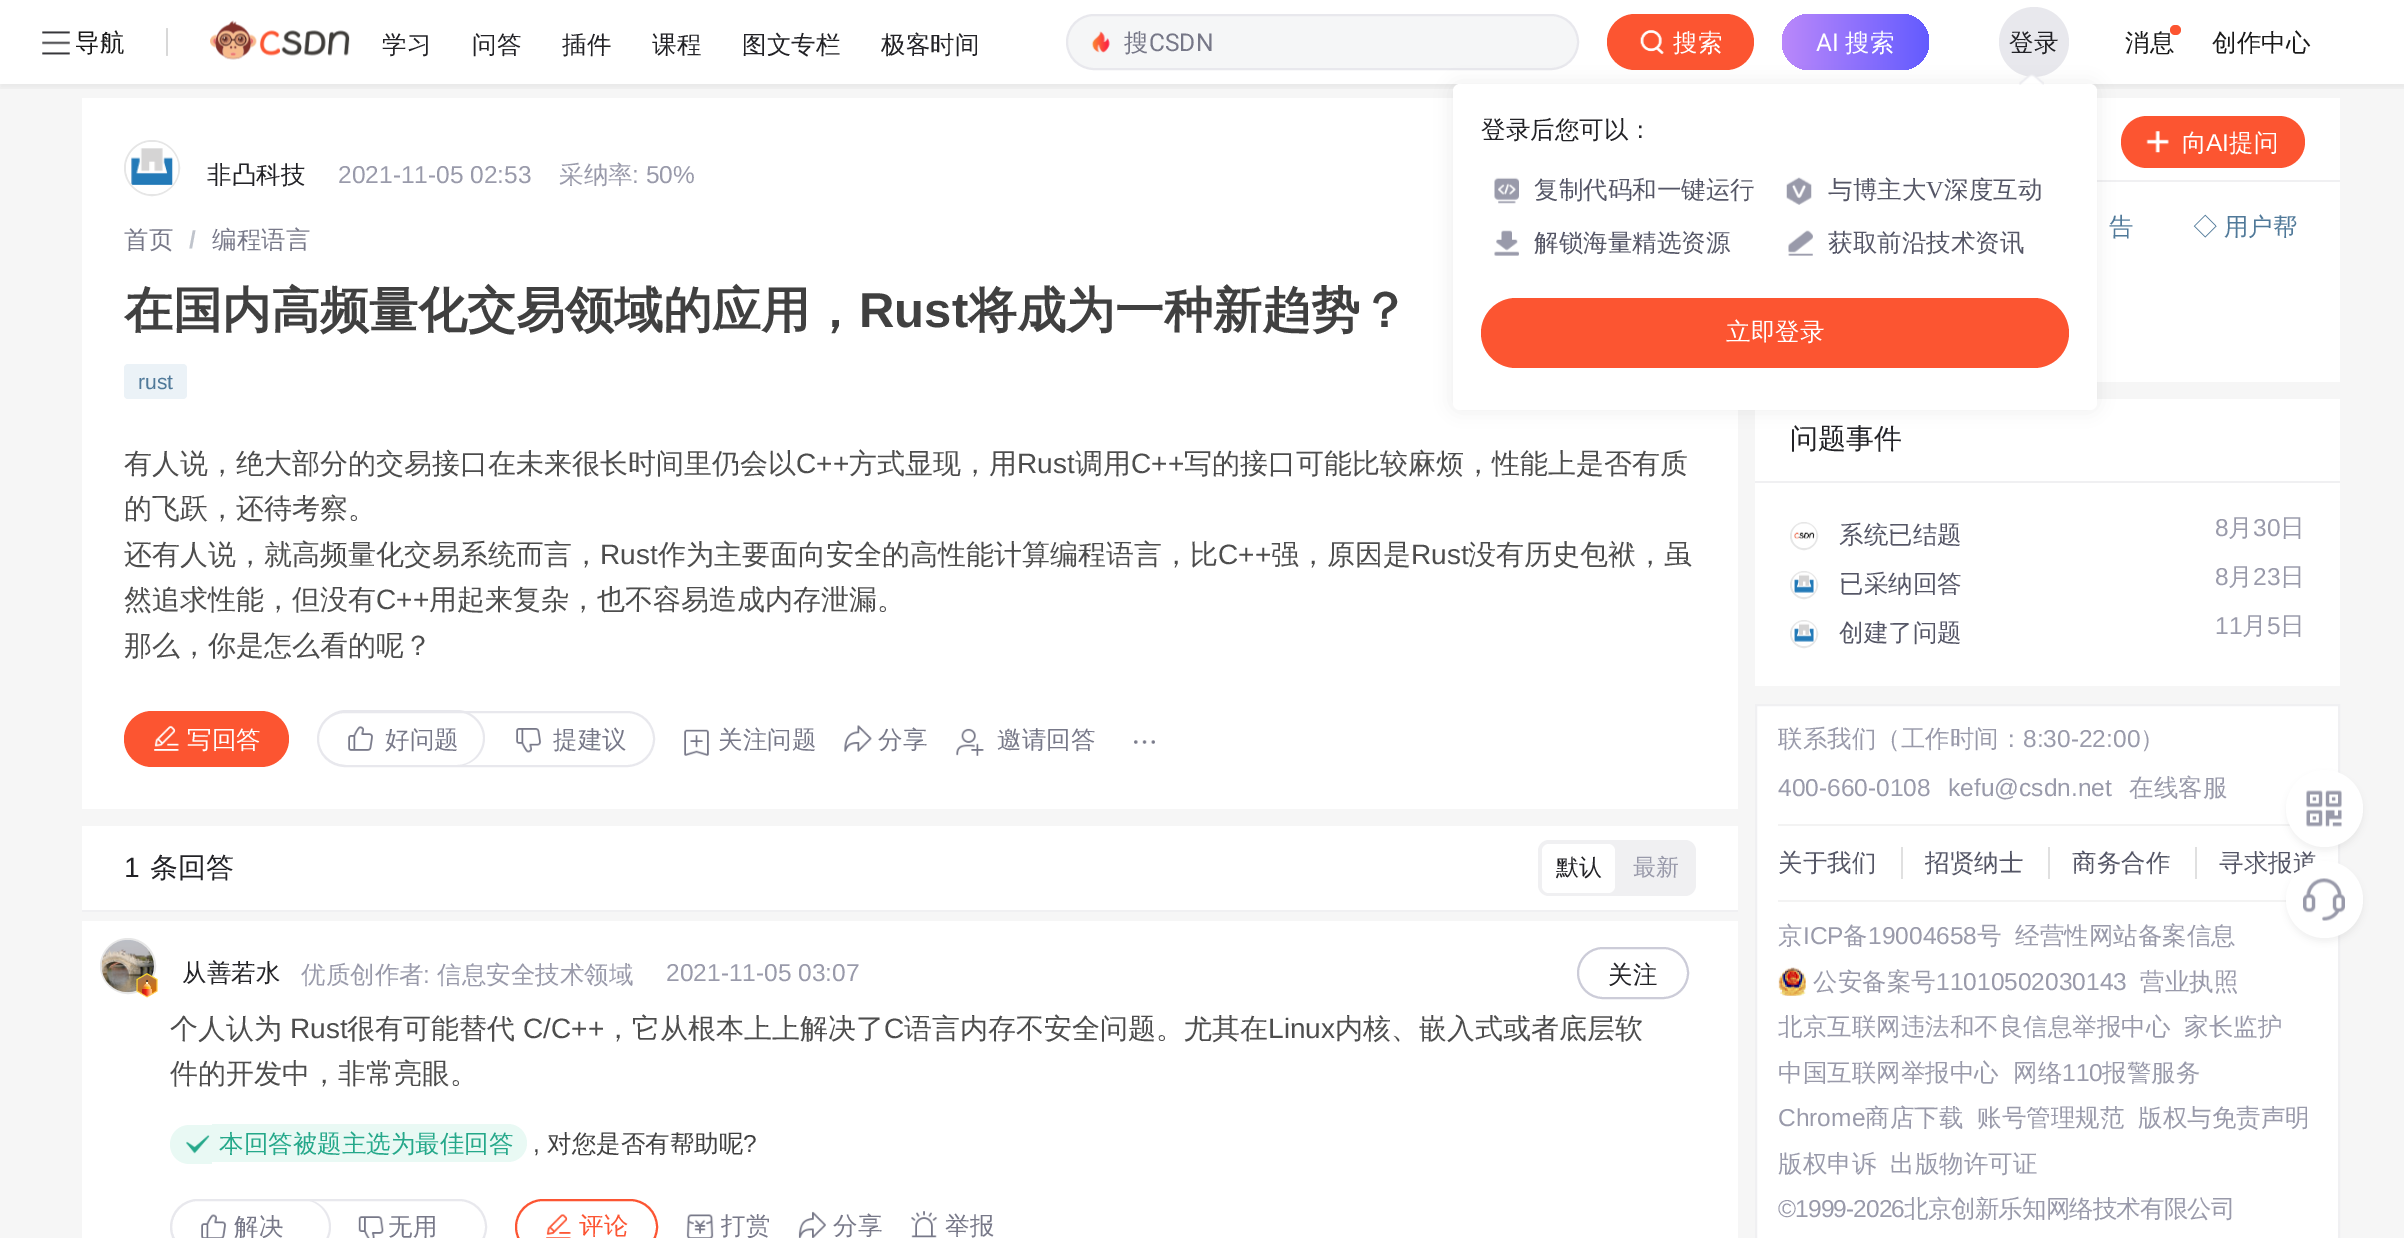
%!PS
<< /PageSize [2404 1238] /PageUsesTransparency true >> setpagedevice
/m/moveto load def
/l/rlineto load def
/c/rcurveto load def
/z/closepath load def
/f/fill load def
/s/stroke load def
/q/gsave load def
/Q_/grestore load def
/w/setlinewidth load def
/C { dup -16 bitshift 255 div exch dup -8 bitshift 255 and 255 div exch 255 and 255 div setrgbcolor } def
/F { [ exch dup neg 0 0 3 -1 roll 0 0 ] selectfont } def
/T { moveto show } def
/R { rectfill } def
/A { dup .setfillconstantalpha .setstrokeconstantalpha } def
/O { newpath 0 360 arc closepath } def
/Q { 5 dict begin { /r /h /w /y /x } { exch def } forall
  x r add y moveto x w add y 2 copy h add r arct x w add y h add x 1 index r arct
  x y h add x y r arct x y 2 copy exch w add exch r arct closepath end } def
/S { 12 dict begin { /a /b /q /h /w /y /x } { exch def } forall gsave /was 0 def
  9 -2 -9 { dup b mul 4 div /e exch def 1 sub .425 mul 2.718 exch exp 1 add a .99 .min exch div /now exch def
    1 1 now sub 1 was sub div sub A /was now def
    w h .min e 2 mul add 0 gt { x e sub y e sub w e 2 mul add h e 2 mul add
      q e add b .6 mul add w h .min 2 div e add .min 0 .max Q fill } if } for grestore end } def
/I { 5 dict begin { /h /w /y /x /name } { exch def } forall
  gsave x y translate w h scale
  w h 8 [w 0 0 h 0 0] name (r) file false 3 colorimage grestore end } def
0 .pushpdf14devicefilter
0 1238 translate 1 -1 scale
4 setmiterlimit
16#FFFFFF C
0 0 2404 1238 R
16#F6F6F6 C
0 84 2404 1154 R
16#FFFFFF C
82 98 1656 711 R
2097 98 243 284 R
q
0 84 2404 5 rectclip
16#000000 C
0 4 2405 84 0 3.5 .05 S
Q_
(1.rgb) 42 31 28 24 I
/WenQuanYiZenHei-Medium 24.5 F
16#1A1A1A C
(导航) 75 51 T
16#D8D8D8 C
166 28 2 28 1 Q f
(2.rgb) 210 20 140 40 I
16#222226 C
(学习) 382 53 T
(问答) 472 53 T
(插件) 562 53 T
(课程) 652 53 T
(图文专栏) 742 53 T
(极客时间) 881 53 T
16#F5F6F7 C
1067 15 511 54 27 Q q f Q_
16#E8E8ED C
2 w
s
(3.rgb) 1091 31 19 22 I
16#777888 C
(搜) 1124 51 T
/Roboto-Regular 24.5 F
(CSDN) 1149 51 T
16#FC5531 C
1607 14 147 56 28 Q f
(4.rgb) 1640 30 24 25 I
/WenQuanYiZenHei-Medium 24.5 F
16#FFFFFF C
(搜索) 1673 51 T
q 1782 14 147 56 28 Q clip newpath
<< /ShadingType 2 /ColorSpace /DeviceRGB /Coords [1782 42 1929 42] /Extend [true true] /Function << /FunctionType 2 /Domain [0 1] /C0 [.729 .533 .98] /C1 [.388 .357 1] /N 1 >> >> shfill Q_
/Roboto-Regular 24.5 F
(AI) 1816 51 T
/WenQuanYiZenHei-Medium 24.5 F
(搜索) 1845 51 T
16#E8E8ED C
2034 42 35 O f
16#222226 C
(登录) 2009 51 T
16#F0F0F2 C
2097 180 243 2 R
16#FC5531 C
2121 116 184 52 26 Q f
16#FFFFFF C
1755 399 585 287 R
16#000000 C
1449 81 651 332 11 9 .06 S
16#FFFFFF C
1453 84 644 326 7 Q f
(5.rgb) 2019 74 25 11 I
16#222226 C
(登录后您可以：) 1481 138 T
(6.rgb) 1494 177 25 27 I
16#555666 C
(复制代码和一键运行) 1534 198 T
(7.rgb) 1786 177 26 28 I
(与博主大) 1828 198 T
/LiberationSerif-Regular 24.5 F
(V) 1926 198 T
/WenQuanYiZenHei-Medium 24.5 F
(深度互动) 1944 198 T
(8.rgb) 1494 230 25 26 I
(解锁海量精选资源) 1534 251 T
(9.rgb) 1788 230 25 26 I
(获取前沿技术资讯) 1828 251 T
16#FC5531 C
1481 298 588 70 35 Q f
16#FFFFFF C
(立即登录) 1726 340 T
16#1A1A1A C
(消息) 2125 51 T
16#FC5531 C
2170 25 11 10 5 Q f
16#1A1A1A C
(创作中心) 2212 51 T
16#E6E6E6 C
152 168 27 O s
(10.rgb) 126 142 53 52 I
16#222226 C
(非凸科技) 207 183 T
/LiberationSans-Regular 24.5 F
16#999AAA C
(2021-11-05 02:53) 338 183 T
/WenQuanYiZenHei-Medium 24.5 F
(采纳率) 559 183 T
/LiberationSans-Regular 24.5 F
(: 50%) 632 183 T
/WenQuanYiZenHei-Medium 24.5 F
16#777888 C
(首页) 124 248 T
/LiberationSans-Bold 24.5 F
16#C0C4CC C
(/) 189 248 T
/WenQuanYiZenHei-Medium 24.5 F
16#777888 C
(编程语言) 212 248 T
/WenQuanYiZenHei-Bold 49 F
16#404040 C
(在国内高频量化交易领域的应用，) 124 327 T
/LiberationSans-Bold 49 F
(Rust) 859 327 T
/WenQuanYiZenHei-Bold 49 F
(将成为一种新趋势？) 968 327 T
16#EBF2F7 C
124 364 63 35 4 Q f
/LiberationSans-Regular 21 F
16#507999 C
(rust) 138 389 T
/WenQuanYiZenHei-Medium 28 F
16#4D4D4D C
(有人说，绝大部分的交易接口在未来很长时间里仍会以) 124 473 T
/LiberationSans-Regular 28 F
(C++) 796 473 T
/WenQuanYiZenHei-Medium 28 F
(方式显现，用) 849 473 T
/LiberationSans-Regular 28 F
(Rust) 1017 473 T
/WenQuanYiZenHei-Medium 28 F
(调用) 1075 473 T
/LiberationSans-Regular 28 F
(C++) 1131 473 T
/WenQuanYiZenHei-Medium 28 F
(写的接口可能比较麻烦，性能上是否有质) 1184 473 T
(的飞跃，还待考察。) 124 518 T
(还有人说，就高频量化交易系统而言，) 124 564 T
/LiberationSans-Regular 28 F
(Rust) 600 564 T
/WenQuanYiZenHei-Medium 28 F
(作为主要面向安全的高性能计算编程语言，比) 658 564 T
/LiberationSans-Regular 28 F
(C++) 1218 564 T
/WenQuanYiZenHei-Medium 28 F
(强，原因是) 1271 564 T
/LiberationSans-Regular 28 F
(Rust) 1411 564 T
/WenQuanYiZenHei-Medium 28 F
(没有历史包袱，虽) 1468 564 T
(然追求性能，但没有) 124 609 T
/LiberationSans-Regular 28 F
(C++) 376 609 T
/WenQuanYiZenHei-Medium 28 F
(用起来复杂，也不容易造成内存泄漏。) 429 609 T
(那么，你是怎么看的呢？) 124 655 T
16#FC5531 C
124 711 165 56 28 Q f
(11.rgb) 154 725 25 26 I
/WenQuanYiZenHei-Medium 24.5 F
16#FFFFFF C
(写回答) 187 748 T
16#E8E8ED C
318 712 336 54 27 Q s
346 710 m 111 0 l 15 0 28 13 28 28 c 0 16 -13 28 -28 28 c -111 0 l -15 0 -28 -12 -28 -28 c 0 -15 13 -28 28 -28 c z 346 712 m 111 0 l 14 0 26 12 26 26 c 0 15 -12 27 -26 27 c -111 0 l -15 0 -28 -12 -28 -27 c 0 -14 13 -26 28 -26 c z eofill
(12.rgb) 348 726 25 25 I
16#777888 C
(好问题) 385 748 T
(13.rgb) 516 728 26 25 I
(提建议) 553 748 T
(14.rgb) 684 729 25 27 I
(关注问题) 718 748 T
(15.rgb) 844 725 28 27 I
(分享) 878 748 T
(16.rgb) 956 728 28 28 I
(邀请回答) 997 748 T
(17.rgb) 1134 740 21 4 I
16#FFFFFF C
82 826 1656 84 R
/LiberationSans-Regular 28 F
16#222226 C
(1) 124 877 T
/WenQuanYiZenHei-Medium 28 F
(条回答) 150 877 T
16#F0F0F2 C
1538 840 158 56 11 Q f
16#FFFFFF C
1542 844 73 49 7 Q f
/WenQuanYiZenHei-Medium 23 F
16#222226 C
(默认) 1556 875 T
16#999AAA C
(最新) 1633 875 T
16#F0F0F2 C
82 910 1656 2 R
16#FFFFFF C
82 921 1656 317 R
16#E6E6E6 C
128 966 27 O s
(18.rgb) 101 940 53 53 I
(19.rgb) 136 973 22 25 I
/WenQuanYiZenHei-Medium 24.5 F
16#222226 C
(从善若水) 182 981 T
16#999AAA C
(优质创作者) 301 983 T
/LiberationSans-Regular 24.5 F
(:) 423 983 T
/WenQuanYiZenHei-Medium 24.5 F
(信息安全技术领域) 437 983 T
/LiberationSans-Regular 24.5 F
(2021-11-05 03:07) 666 981 T
16#CCCCD8 C
1578 948 110 50 25 Q s
/WenQuanYiZenHei-Medium 24.5 F
16#222226 C
(关注) 1608 983 T
/WenQuanYiZenHei-Medium 28 F
16#4D4D4D C
(个人认为) 170 1038 T
/LiberationSans-Regular 28 F
(Rust) 290 1038 T
/WenQuanYiZenHei-Medium 28 F
(很有可能替代) 347 1038 T
/LiberationSans-Regular 28 F
(C/C++) 523 1038 T
/WenQuanYiZenHei-Medium 28 F
(，它从根本上上解决了) 604 1038 T
/LiberationSans-Regular 28 F
(C) 884 1038 T
/WenQuanYiZenHei-Medium 28 F
(语言内存不安全问题。尤其在) 904 1038 T
/LiberationSans-Regular 28 F
(Linux) 1268 1038 T
/WenQuanYiZenHei-Medium 28 F
(内核、嵌入式或者底层软) 1335 1038 T
(件的开发中，非常亮眼。) 170 1083 T
16#E9F9F4 C
189.5 1125 m 22.5 0 l 0 39 l -22.5 0 l -11 0 -19.5 -8.5 -19.5 -19.5 c 0 -11 8.5 -19.5 19.5 -19.5 c z f
212 1124 7 38 R
219 1124 m 289 0 l 10.5 0 19 8.5 19 19 c 0 10.5 -8.5 19 -19 19 c -289 0 l z f
(20.rgb) 186 1135 24 19 I
/WenQuanYiZenHei-Medium 24.5 F
16#25A88A C
(本回答被题主选为最佳回答) 219 1152 T
/LiberationSans-Regular 24.5 F
16#404040 C
(,) 533 1152 T
/WenQuanYiZenHei-Medium 24.5 F
(对您是否有帮助呢) 547 1152 T
/LiberationSans-Regular 24.5 F
(?) 743 1152 T
16#E8E8ED C
171 1200 315 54 27 Q s
200 1199 m 103 0 l 15 0 28 12 28 28 c 0 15 -13 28 -28 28 c -103 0 l -16 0 -28 -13 -28 -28 c 0 -16 12 -28 28 -28 c z 200 1200 m 103 0 l 14 0 26 12 26 27 c 0 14 -12 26 -26 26 c -103 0 l -16 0 -28 -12 -28 -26 c 0 -15 12 -27 28 -27 c z eofill
(21.rgb) 201 1214 26 24 I
/WenQuanYiZenHei-Medium 24.5 F
16#777888 C
(解决) 234 1235 T
(22.rgb) 358 1216 26 22 I
(无用) 388 1235 T
16#FC5533 C
516 1200 141 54 27 Q s
(23.rgb) 546 1214 25 24 I
(评论) 579 1234 T
(24.rgb) 686 1214 28 24 I
16#777888 C
(打赏) 721 1234 T
(25.rgb) 798 1211 28 27 I
(分享) 833 1234 T
(26.rgb) 911 1211 27 27 I
(举报) 945 1234 T
(27.rgb) 2146 131 23 22 I
16#FFFFFF C
(向) 2182 151 T
/LiberationSans-Regular 24.5 F
(AI) 2206 151 T
/WenQuanYiZenHei-Medium 24.5 F
(提问) 2229 151 T
16#507999 C
(告) 2109 235 T
2193 235 m -1 0 32 (◇ 用户帮) widthshow
16#F0F0F2 C
1755 481 585 2 R
/WenQuanYiZenHei-Medium 28 F
16#222226 C
(问题事件) 1790 448 T
16#E6E6E6 C
1804 536 13 O s
/WenQuanYiZenHei-Medium 24.5 F
16#555666 C
(系统已结题) 1839 543 T
/LiberationSans-Regular 24.5 F
16#999AAA C
(8) 2215 536 T
/WenQuanYiZenHei-Medium 24.5 F
(月) 2228 536 T
/LiberationSans-Regular 24.5 F
(30) 2253 536 T
/WenQuanYiZenHei-Medium 24.5 F
(日) 2280 536 T
(28.rgb) 1792 523 25 25 I
16#E6E6E6 C
1804 585 13 O s
16#555666 C
(已采纳回答) 1839 592 T
/LiberationSans-Regular 24.5 F
16#999AAA C
(8) 2215 585 T
/WenQuanYiZenHei-Medium 24.5 F
(月) 2228 585 T
/LiberationSans-Regular 24.5 F
(23) 2253 585 T
/WenQuanYiZenHei-Medium 24.5 F
(日) 2280 585 T
(29.rgb) 1792 572 25 25 I
16#E6E6E6 C
1804 634 13 O s
16#555666 C
(创建了问题) 1839 641 T
/LiberationSans-Regular 24.5 F
16#999AAA C
(11) 2215 634 T
/WenQuanYiZenHei-Medium 24.5 F
(月) 2242 634 T
/LiberationSans-Regular 24.5 F
(5) 2267 634 T
/WenQuanYiZenHei-Medium 24.5 F
(日) 2280 634 T
(29.rgb) 1792 621 25 25 I
16#FFFFFF C
1756 705 m 583 0 l 0 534 l -583 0 l z q f Q_
16#F0F0F2 C
s
16#999AAA C
(联系我们（工作时间：) 1778 747 T
/LiberationSans-Regular 24.5 F
(8:30-22:00) 2023 747 T
/WenQuanYiZenHei-Medium 24.5 F
(）) 2140 747 T
/LiberationSans-Regular 24.5 F
(400-660-0108) 1778 796 T
(kefu@csdn.net) 1948 796 T
/WenQuanYiZenHei-Medium 24.5 F
(在线客服) 2129 796 T
16#F3F3F3 C
1778 824 513 2 R
1778 900 509 2 R
16#555666 C
(关于我们) 1778 871 T
16#E0E0E0 C
1901 847 2 32 R
16#555666 C
(招贤纳士) 1925 871 T
16#E0E0E0 C
2048 847 2 32 R
16#555666 C
(商务合作) 2072 871 T
16#E0E0E0 C
2195 847 2 32 R
16#555666 C
(寻求报道) 2219 871 T
16#999AAA C
(京) 1778 944 T
/LiberationSans-Regular 24.5 F
(ICP) 1803 944 T
/WenQuanYiZenHei-Medium 24.5 F
(备) 1843 944 T
/LiberationSans-Regular 24.5 F
(19004658) 1868 944 T
/WenQuanYiZenHei-Medium 24.5 F
(号) 1977 944 T
(经营性网站备案信息) 2015 944 T
(30.rgb) 1778 967 28 29 I
(公安备案号) 1813 990 T
/LiberationSans-Regular 24.5 F
(11010502030143) 1936 990 T
/WenQuanYiZenHei-Medium 24.5 F
(营业执照) 2140 990 T
(北京互联网违法和不良信息举报中心) 1778 1035 T
(家长监护) 2184 1035 T
(中国互联网举报中心) 1778 1081 T
(网络) 2013 1081 T
/LiberationSans-Regular 24.5 F
(110) 2062 1081 T
/WenQuanYiZenHei-Medium 24.5 F
(报警服务) 2102 1081 T
/LiberationSans-Regular 24.5 F
(Chrome) 1778 1126 T
/WenQuanYiZenHei-Medium 24.5 F
(商店下载) 1865 1126 T
(账号管理规范) 1977 1126 T
(版权与免责声明) 2138 1126 T
(版权申诉) 1778 1172 T
(出版物许可证) 1890 1172 T
/LiberationSans-Regular 24.5 F
1778 1217 m -.9 0 (©1999-2026) ashow
/WenQuanYiZenHei-Medium 24.5 F
1904 1217 m -.9 0 (北京创新乐知网络技术有限公司) ashow
16#000000 C
2286 774 77 77 38.5 3.5 .05 S
16#FFFFFF C
2324.5 808.5 38.5 O f
(31.rgb) 2306 790 36 37 I
16#000000 C
2286 865 77 77 38.5 3.5 .05 S
16#FFFFFF C
2324.5 899.5 38.5 O f
(32.rgb) 2303 878 42 43 I
.poppdf14devicefilter showpage
